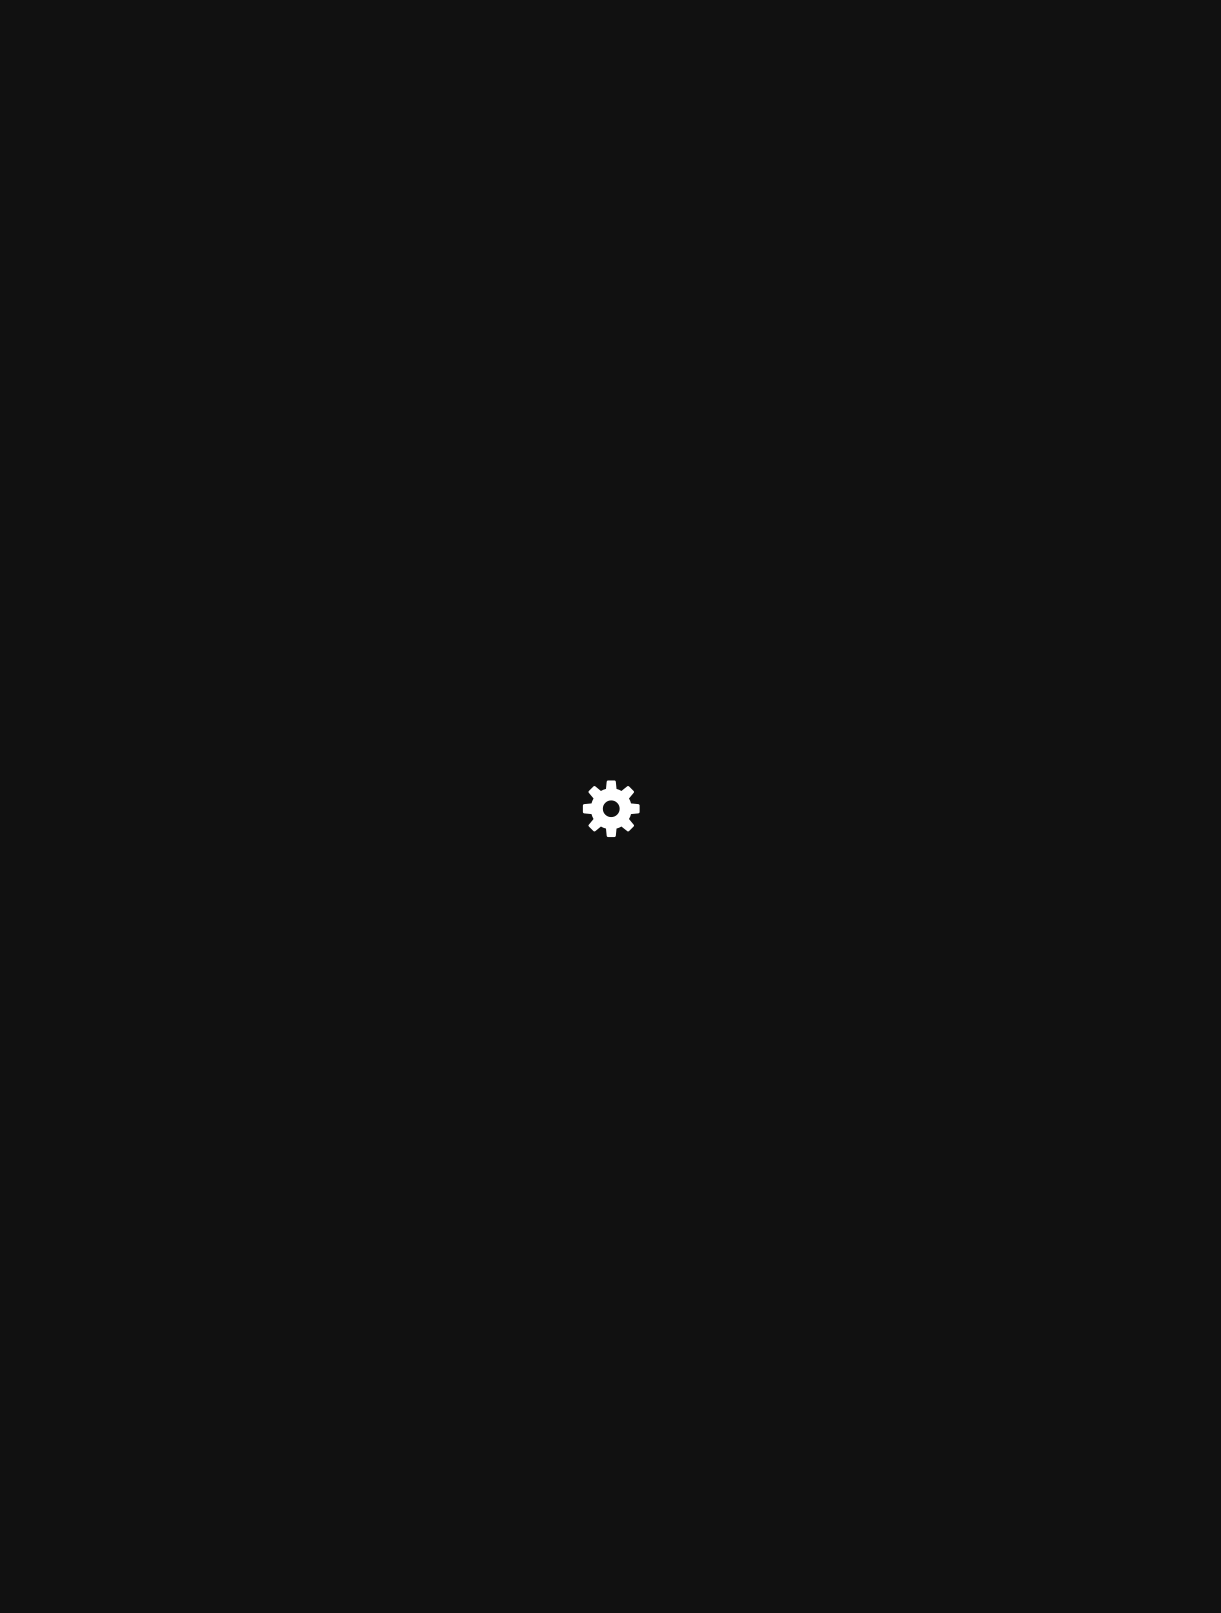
%!PS
<< /PageSize [1221 1613] >> setpagedevice
/C { dup -16 bitshift 255 div exch dup -8 bitshift 255 and 255 div exch 255 and 255 div setrgbcolor } def
/R { rectfill } def
/I { 5 dict begin { /h /w /y /x /name } { exch def } forall
  gsave x y translate w h scale
  w h 8 [w 0 0 h 0 0] name (r) file false 3 colorimage grestore end } def
0 1613 translate 1 -1 scale
4 setmiterlimit
16#111111 C
0 0 1221 1613 R
(1.rgb) 582 780 58 58 I
showpage
